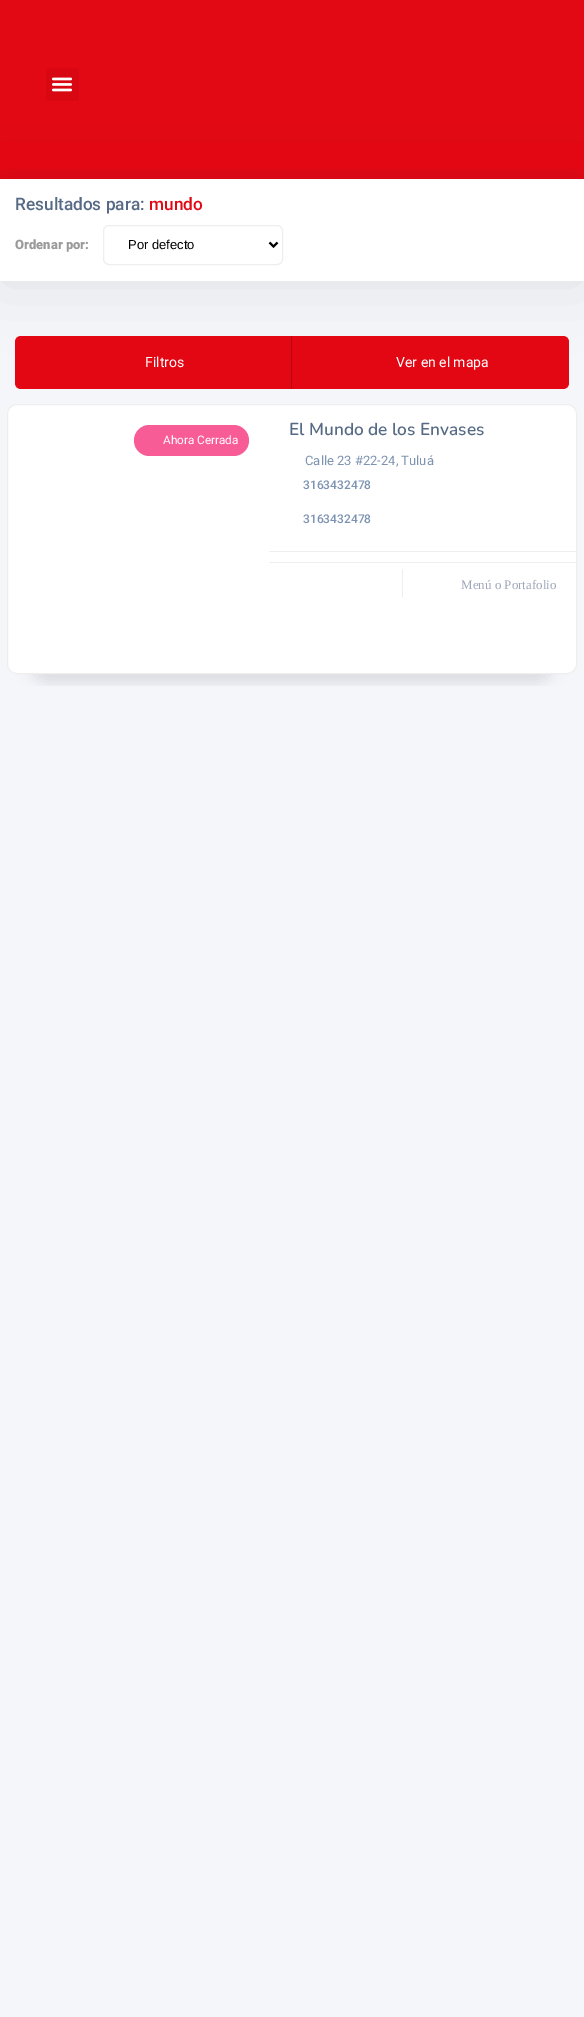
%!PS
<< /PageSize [584 2017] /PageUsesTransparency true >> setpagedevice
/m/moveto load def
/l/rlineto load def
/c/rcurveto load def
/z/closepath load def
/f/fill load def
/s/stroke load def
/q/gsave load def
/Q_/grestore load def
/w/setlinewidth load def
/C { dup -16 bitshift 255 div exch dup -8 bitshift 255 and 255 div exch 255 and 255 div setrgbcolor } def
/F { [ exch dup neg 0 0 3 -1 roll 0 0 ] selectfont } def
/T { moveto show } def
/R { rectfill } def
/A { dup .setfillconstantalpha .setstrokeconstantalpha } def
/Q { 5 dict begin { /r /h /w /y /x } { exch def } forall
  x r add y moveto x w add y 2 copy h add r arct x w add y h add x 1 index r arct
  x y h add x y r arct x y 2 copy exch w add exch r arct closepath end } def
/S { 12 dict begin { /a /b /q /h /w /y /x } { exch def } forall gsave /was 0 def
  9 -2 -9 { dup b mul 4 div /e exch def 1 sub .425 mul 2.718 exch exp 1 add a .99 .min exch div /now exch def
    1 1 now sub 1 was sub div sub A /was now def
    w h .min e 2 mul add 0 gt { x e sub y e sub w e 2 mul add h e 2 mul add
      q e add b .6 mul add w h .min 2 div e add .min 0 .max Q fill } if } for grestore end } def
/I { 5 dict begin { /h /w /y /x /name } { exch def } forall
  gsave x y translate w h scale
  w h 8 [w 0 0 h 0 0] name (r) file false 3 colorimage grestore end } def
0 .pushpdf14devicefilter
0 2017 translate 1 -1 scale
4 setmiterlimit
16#E30914 C
0 0 584 2017 R
16#F5F6FA C
0 281 584 1736 R
16#000000 C
0 179 584 102 0 32.5 .09 S
16#E30713 C
0 142 584 27 R
16#D80712 C
46 68 33 33 3 Q f
(1.rgb) 51 77 22 15 I
16#FFFFFF C
0 179 584 102 R
/Roboto-Medium 17.25 F
16#566985 C
(Resultados para:) 15 210 T
16#E30914 C
(mundo) 149 210 T
/Roboto-Black 13 F
16#999999 C
(Ordenar por:) 15 249 T
16#EEEEEE C
103.5 225.5 179 39 5.5 Q s
16#000000 C
2 w
269.5 242.5 m 4 4 l 4 -4 l s
/LiberationSans-Regular 13 F
(Por defecto) 128 249 T
16#E30713 C
21 336 m 271 0 l 0 53 l -271 0 l -3.5 0 -6 -2.5 -6 -6 c 0 -41 l 0 -3.5 2.5 -6 6 -6 c z f
16#B3060F C
291 336 1 53 R
/Roboto-Regular 14 F
16#FFFFFF C
(Filtros) 145 367 T
16#E30713 C
292 336 m 271 0 l 3.5 0 6 2.5 6 6 c 0 41 l 0 3.5 -2.5 6 -6 6 c -271 0 l z f
16#FFFFFF C
(Ver en el mapa) 396 367 T
q
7 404 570 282 rectclip
16#252C41 C
28 633 528 50 25 7 .12 S
Q_
7.5 404.5 569 269 9.5 Q q f Q_
16#EEEEEE C
1 w
s
16#F75C96 C
134 425 115 31 15.5 Q f
/Roboto-Regular 11.75 F
16#FFFFFF C
(Ahora Cerrada) 163 444 T
16#EEEEEE C
269 551 307 1 R
/Nunito-SemiBold 17.25 F
16#566985 C
(El Mundo de los Envases) 289 435 T
/Roboto-Regular 13 F
16#7D93B2 C
(Calle 23 #22-24, Tuluá) 305 465 T
/Roboto-Medium 12 F
(3163432478) 303 489 T
(3163432478) 303 523 T
16#EEEEEE C
269 562 307 1 R
402 569 1 28 R
/LiberationSerif-Regular 13 F
16#9EA6BA C
(Menú o Portafolio) 461 589 T
.poppdf14devicefilter showpage
